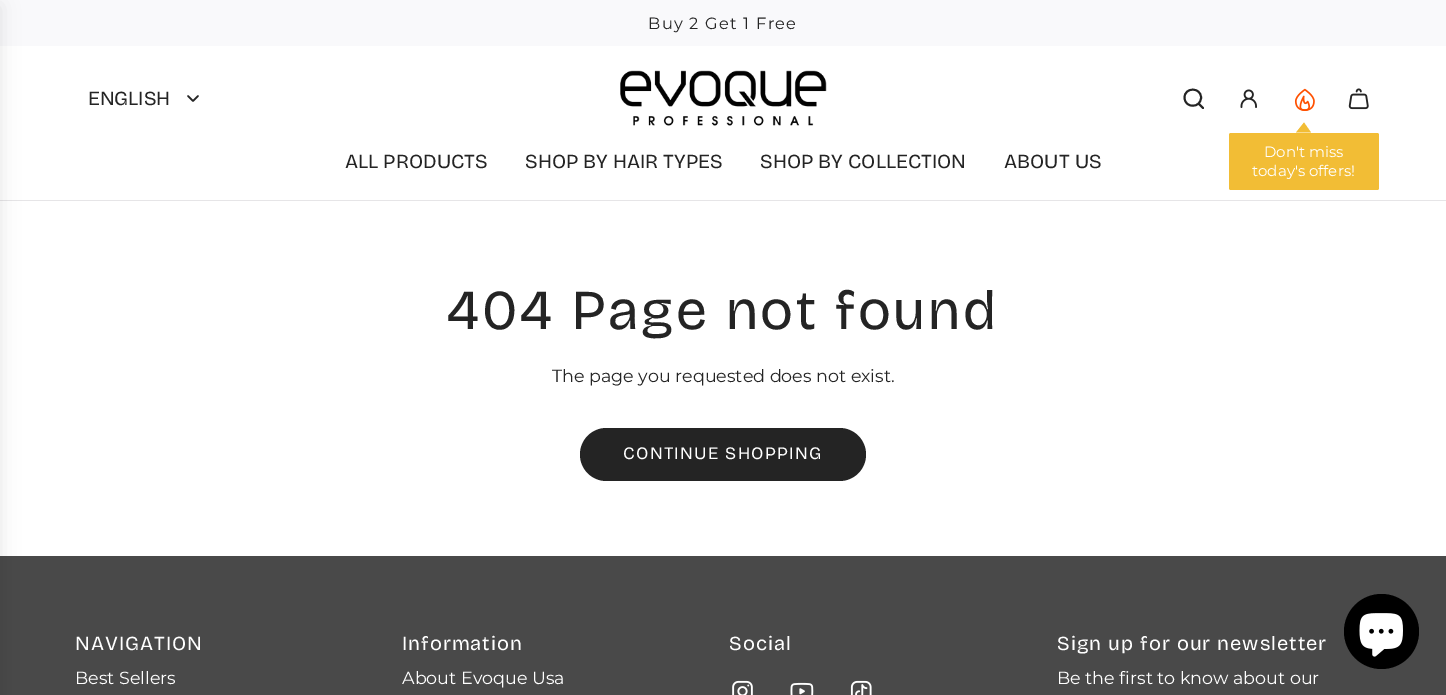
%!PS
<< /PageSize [1446 695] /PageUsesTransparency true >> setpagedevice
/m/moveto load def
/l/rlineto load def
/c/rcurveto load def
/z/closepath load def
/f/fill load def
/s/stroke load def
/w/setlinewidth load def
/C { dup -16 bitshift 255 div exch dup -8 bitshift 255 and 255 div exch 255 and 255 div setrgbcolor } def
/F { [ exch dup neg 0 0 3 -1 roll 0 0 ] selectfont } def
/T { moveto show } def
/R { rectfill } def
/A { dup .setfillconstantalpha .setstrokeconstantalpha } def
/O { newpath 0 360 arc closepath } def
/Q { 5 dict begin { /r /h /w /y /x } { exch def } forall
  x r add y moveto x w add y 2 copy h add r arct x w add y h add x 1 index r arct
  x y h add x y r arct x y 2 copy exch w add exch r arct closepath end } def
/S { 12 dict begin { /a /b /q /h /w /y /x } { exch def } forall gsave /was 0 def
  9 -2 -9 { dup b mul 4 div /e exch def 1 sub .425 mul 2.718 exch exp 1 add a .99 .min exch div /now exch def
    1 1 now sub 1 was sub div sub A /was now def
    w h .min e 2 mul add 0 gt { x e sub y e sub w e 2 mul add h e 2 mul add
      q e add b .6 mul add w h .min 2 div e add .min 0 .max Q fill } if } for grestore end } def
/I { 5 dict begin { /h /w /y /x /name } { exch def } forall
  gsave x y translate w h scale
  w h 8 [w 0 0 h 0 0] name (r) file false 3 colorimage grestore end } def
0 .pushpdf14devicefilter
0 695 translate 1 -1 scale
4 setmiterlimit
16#FFFFFF C
0 0 1446 695 R
16#F9F9FB C
0 0 1446 46 R
/Montserrat-Regular 16.25 F
16#242424 C
648 29 m 1.25 0 (Buy 2 Get 1 Free) ashow
16#E6E5E7 C
0 200 1446 1 R
16#494949 C
0 556 1446 139 R
16#000000 C
-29 6 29 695 0 9.5 .1 S
/BricolageGrotesque-Regular 20 F
16#242424 C
(ENGLISH) 88 105 T
1.5 w
1 setlinecap
1 setlinejoin
188 96 m 5 5 l 5 -5 l s
(1.rgb) 620 70 207 56 I
1.9 w
1199 104 m 4 4 l 1184.5 97.5 m 0 11 16.5 11 16.5 0 c 0 -10.5 -16.5 -10.5 -16.5 0 c z s
(2.rgb) 1240 89 17 19 I
(3.rgb) 1348 88 21 22 I
(4.rgb) 1294 88 21 23 I
16#F2BD35 C
1229 133 150 57 2 Q f
1311 132.5 m -15 0 l 8 -10 l z f
/Montserrat-Regular 15 F
16#FFFFFF C
(Don't miss) 1264 157 T
(today's offers!) 1252 176 T
/BricolageGrotesque-Regular 20 F
16#242424 C
(ALL PRODUCTS) 345 168 T
(SHOP BY HAIR TYPES) 525 168 T
(SHOP BY COLLECTION) 760 168 T
(ABOUT US) 1004 168 T
/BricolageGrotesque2-Regular 56.25 F
447 329 m 2.8 0 (404 Page not found) ashow
/Montserrat-Regular 17.5 F
(The page you requested does not exist.) 552 382 T
580 428 286 53 26.5 Q f
/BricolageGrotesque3-Regular 17.5 F
16#FFFFFF C
623 459 m 1.25 0 (CONTINUE SHOPPING) ashow
/BricolageGrotesque-Regular 20 F
75 650 m 1 0 (NAVIGATION) ashow
/Montserrat-Regular 17.5 F
(Best Sellers) 75 684 T
/BricolageGrotesque-Regular 20 F
402 650 m 1 0 (Information) ashow
/Montserrat-Regular 17.5 F
(About Evoque Usa) 402 684 T
/BricolageGrotesque-Regular 20 F
729 650 m 1 0 (Social) ashow
(5.rgb) 732 680 21 15 I
(6.rgb) 790 682 24 13 I
(7.rgb) 850 680 22 15 I
1057 650 m 1 0 (Sign up for our newsletter) ashow
/Montserrat-Regular 17.5 F
(Be the first to know about our) 1057 684 T
16#000000 C
1381.5 631.5 37.5 O f
(8.rgb) 1359 613 44 44 I
.poppdf14devicefilter showpage
